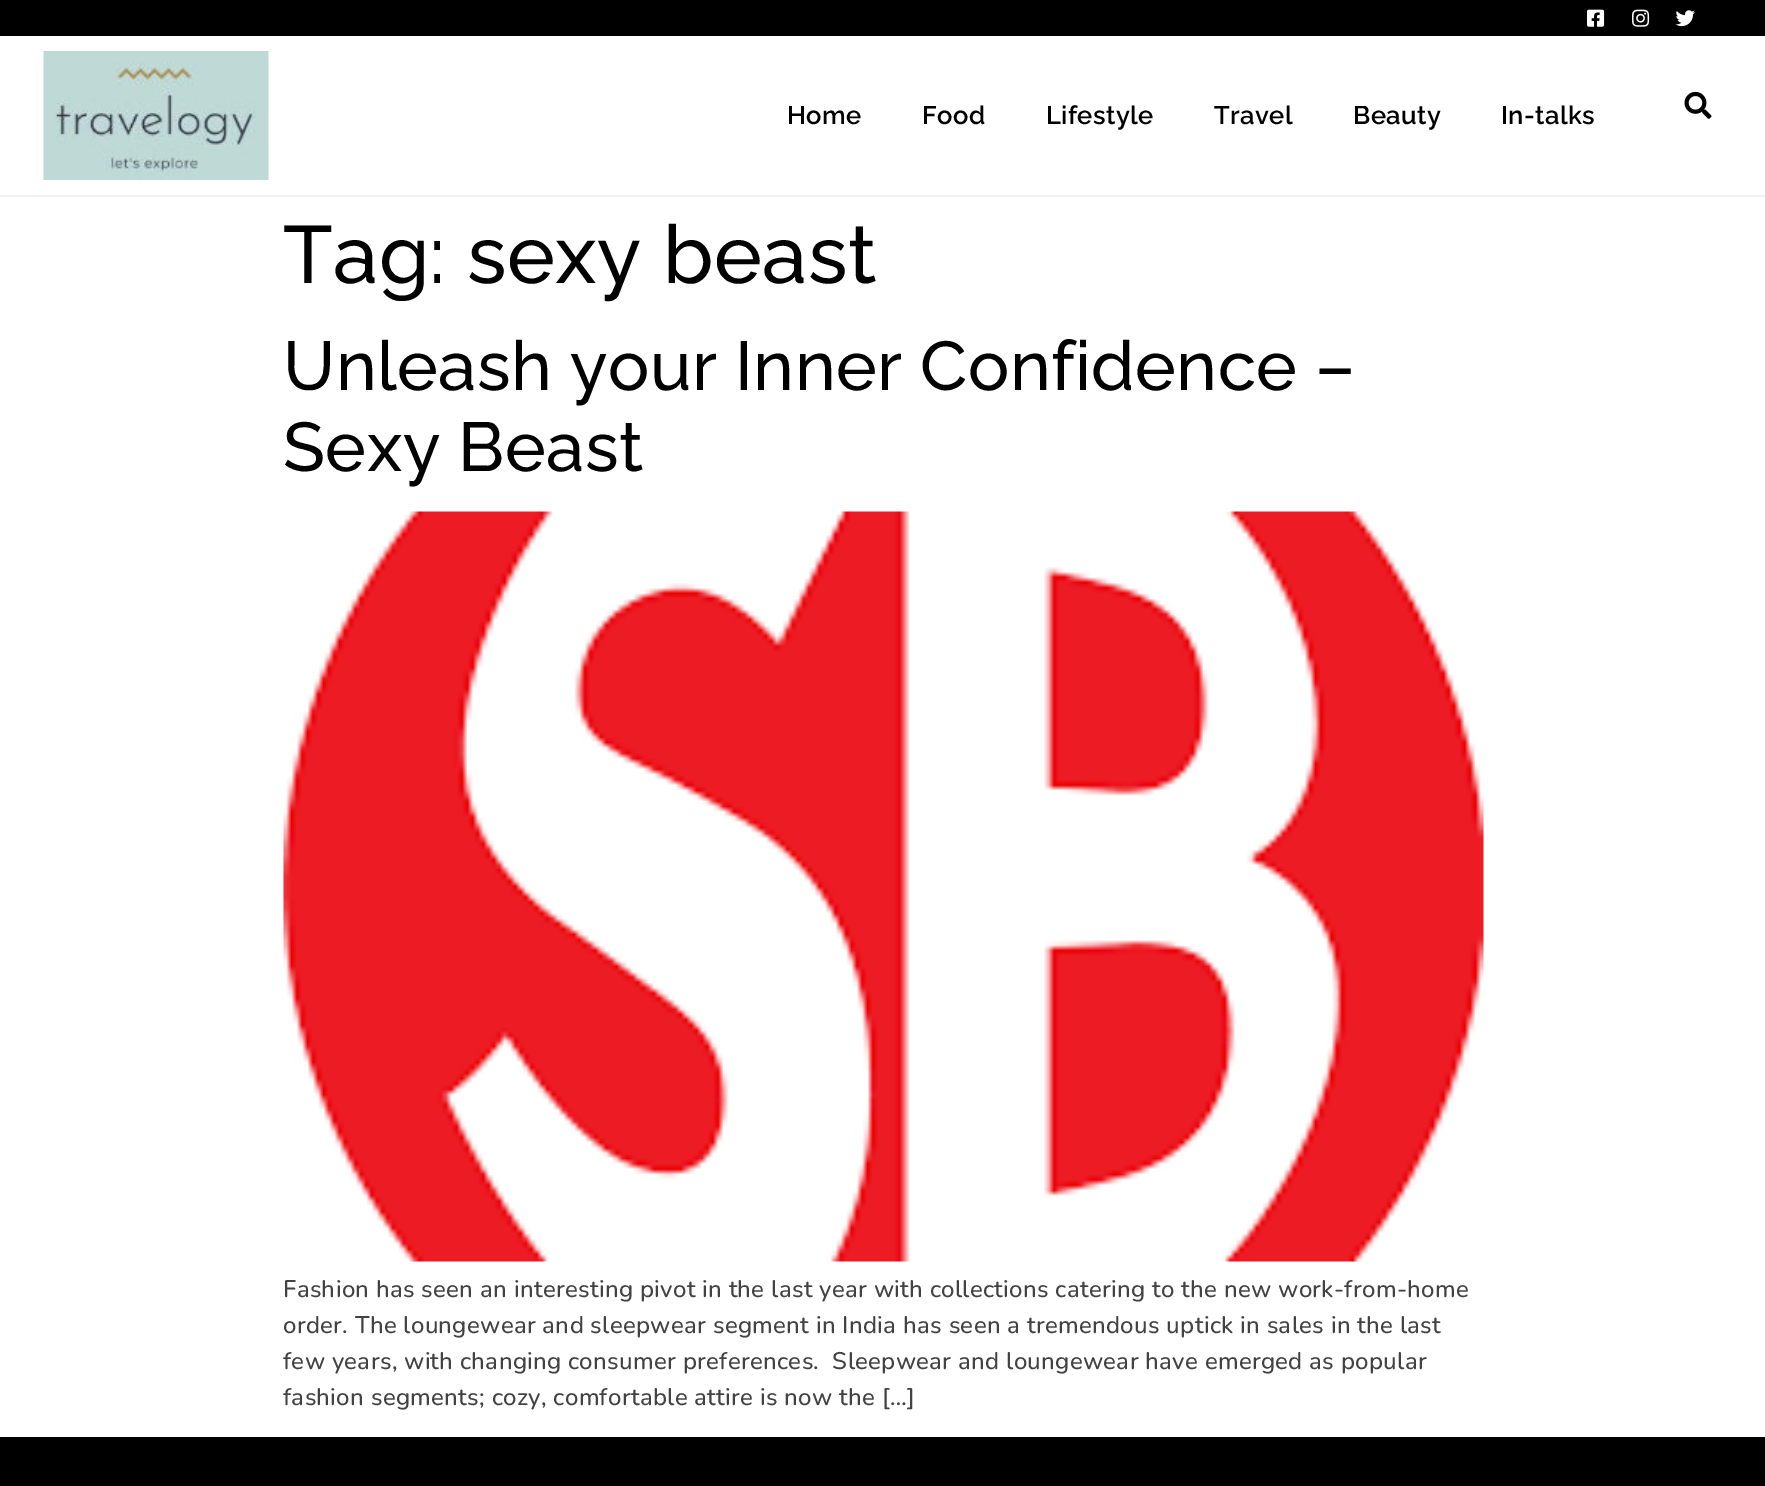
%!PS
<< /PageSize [1765 1486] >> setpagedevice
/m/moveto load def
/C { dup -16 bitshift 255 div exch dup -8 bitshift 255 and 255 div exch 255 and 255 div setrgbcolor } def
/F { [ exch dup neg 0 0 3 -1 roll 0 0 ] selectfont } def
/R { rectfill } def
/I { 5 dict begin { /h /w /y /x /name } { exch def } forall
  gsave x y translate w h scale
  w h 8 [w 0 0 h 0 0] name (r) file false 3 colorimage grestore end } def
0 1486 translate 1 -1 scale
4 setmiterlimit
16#FFFFFF C
0 0 1765 1486 R
16#000000 C
0 0 1765 36 R
(1.rgb) 1587 9 18 18 I
(2.rgb) 1632 9 18 18 I
(3.rgb) 1675 10 20 17 I
16#EFF1F2 C
0 195 1765 2 R
(4.rgb) 43 51 226 129 I
/Raleway-SemiBold 25.5 F
16#000000 C
787 124 m .45 0 (Home) ashow
922 124 m .45 0 (Food) ashow
1046 124 m .45 0 (Lifestyle) ashow
1214 124 m .45 0 (Travel) ashow
1353 124 m .45 0 (Beauty) ashow
1501 124 m .45 0 (In-talks) ashow
(5.rgb) 1684 91 28 28 I
/Raleway-Medium 81 F
283 283 m .45 0 (Tag: sexy beast) ashow
/Raleway-Medium 69 F
283 390 m .45 0 (Unleash your Inner Confidence –) ashow
283 471 m .45 0 (Sexy Beast) ashow
(6.rgb) 283 511 1201 751 I
/Nunito-Medium 24 F
16#424242 C
283 1297 m .3 0 (Fashion has seen an interesting pivot in the last year with collections catering to the new work-from-home) ashow
283 1333 m .3 0 (order. The loungewear and sleepwear segment in India has seen a tremendous uptick in sales in the last) ashow
283 1369 m .3 0 (few years, with changing consumer preferences.  Sleepwear and loungewear have emerged as popular) ashow
283 1405 m .3 0 (fashion segments; cozy, comfortable attire is now the […]) ashow
16#000000 C
0 1437 1765 49 R
showpage
